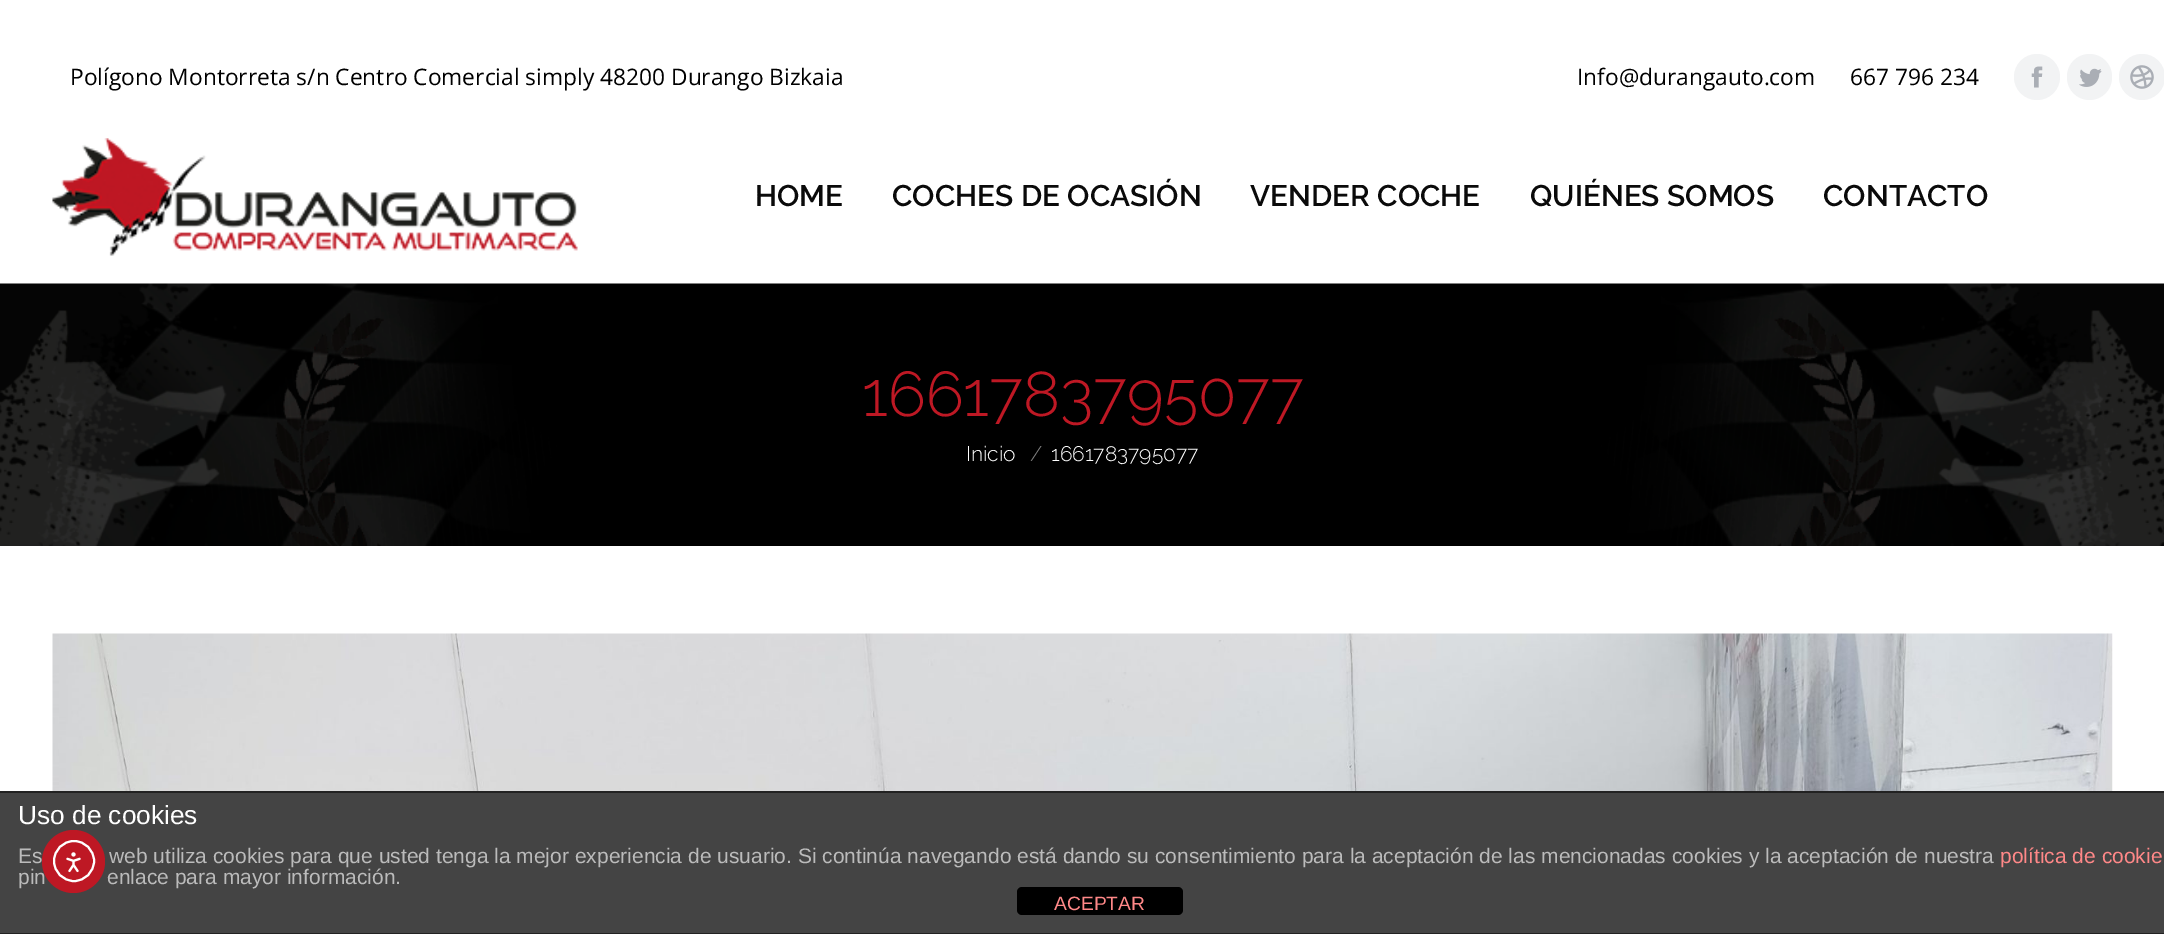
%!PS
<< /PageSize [2164 934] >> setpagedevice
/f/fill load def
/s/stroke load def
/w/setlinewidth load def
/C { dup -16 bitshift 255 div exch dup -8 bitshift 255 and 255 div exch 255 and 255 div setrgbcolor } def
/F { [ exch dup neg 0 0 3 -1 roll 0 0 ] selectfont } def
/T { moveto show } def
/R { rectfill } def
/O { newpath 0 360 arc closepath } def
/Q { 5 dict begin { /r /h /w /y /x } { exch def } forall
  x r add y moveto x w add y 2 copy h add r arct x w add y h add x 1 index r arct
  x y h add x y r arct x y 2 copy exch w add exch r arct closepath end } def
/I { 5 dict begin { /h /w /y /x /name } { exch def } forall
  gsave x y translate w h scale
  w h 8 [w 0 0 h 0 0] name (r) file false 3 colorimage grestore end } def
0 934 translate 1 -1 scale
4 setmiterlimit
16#FFFFFF C
0 0 2164 934 R
/OpenSans-Regular 22.75 F
16#000000 C
(Polígono Montorreta s/n Centro Comercial simply 48200 Durango Bizkaia) 70 85 T
(Info@durangauto.com) 1577 85 T
(667 796 234) 1850 85 T
16#F2F3F4 C
2037 77 23 O f
(1.rgb) 2031 66 12 22 I
2067 54 45 46 22.5 Q f
(2.rgb) 2079 68 23 19 I
2142 77 23 O f
(3.rgb) 2130 65 24 24 I
(4.rgb) 52 138 526 118 I
/Raleway-SemiBold 29.75 F
16#0A0A0A C
(HOME) 755 206 T
(COCHES DE OCASIÓN) 892 206 T
(VENDER COCHE) 1250 206 T
(QUIÉNES SOMOS) 1530 206 T
(CONTACTO) 1823 206 T
(5.rgb) 0 283 2164 263 I
/Raleway-Light 63 F
16#BE1824 C
(1661783795077) 862 416 T
/Raleway-Light 21 F
16#FFFFFF C
(Inicio) 966 461 T
16#808080 C
(/) 1030 461 T
16#FFFFFF C
(1661783795077) 1051 461 T
(6.rgb) 52 633 2061 158 I
16#444444 C
0 793 2164 140 R
16#222222 C
0 791 2164 2 R
0 933 2164 1 R
/LiberationSans-Regular 26.25 F
16#FFFFFF C
(Uso de cookies) 18 824 T
/LiberationSans-Regular 21 F
16#BBBBBB C
(Es) 18 863 T
(web utiliza cookies para que usted tenga la mejor experiencia de usuario. Si continúa navegando está dando su consentimiento para la aceptación de las mencionadas cookies y la aceptación de nuestra) 109 863 T
16#FF8888 C
(política de cookie) 2000 863 T
16#BBBBBB C
(pin) 18 884 T
(enlace para mayor información.) 107 884 T
16#000000 C
1017 887 166 28 5 Q f
/LiberationSans-Regular 19.25 F
16#FF8888 C
(ACEPTAR) 1054 910 T
16#BE1824 C
73.5 861.5 31.5 O f
16#FFFFFF C
2 w
74 861 20 O s
(7.rgb) 66 852 15 21 I
showpage
